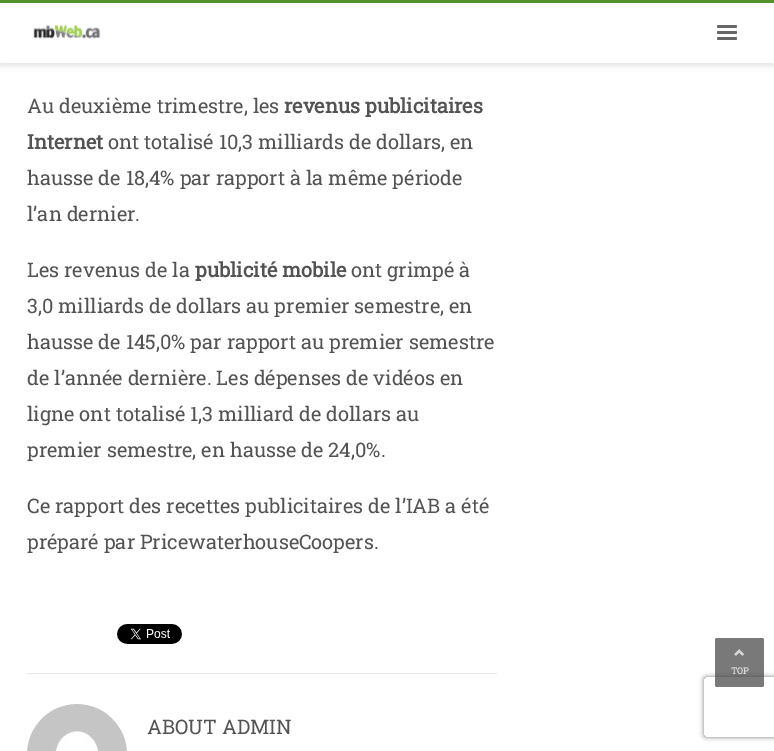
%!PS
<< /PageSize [774 751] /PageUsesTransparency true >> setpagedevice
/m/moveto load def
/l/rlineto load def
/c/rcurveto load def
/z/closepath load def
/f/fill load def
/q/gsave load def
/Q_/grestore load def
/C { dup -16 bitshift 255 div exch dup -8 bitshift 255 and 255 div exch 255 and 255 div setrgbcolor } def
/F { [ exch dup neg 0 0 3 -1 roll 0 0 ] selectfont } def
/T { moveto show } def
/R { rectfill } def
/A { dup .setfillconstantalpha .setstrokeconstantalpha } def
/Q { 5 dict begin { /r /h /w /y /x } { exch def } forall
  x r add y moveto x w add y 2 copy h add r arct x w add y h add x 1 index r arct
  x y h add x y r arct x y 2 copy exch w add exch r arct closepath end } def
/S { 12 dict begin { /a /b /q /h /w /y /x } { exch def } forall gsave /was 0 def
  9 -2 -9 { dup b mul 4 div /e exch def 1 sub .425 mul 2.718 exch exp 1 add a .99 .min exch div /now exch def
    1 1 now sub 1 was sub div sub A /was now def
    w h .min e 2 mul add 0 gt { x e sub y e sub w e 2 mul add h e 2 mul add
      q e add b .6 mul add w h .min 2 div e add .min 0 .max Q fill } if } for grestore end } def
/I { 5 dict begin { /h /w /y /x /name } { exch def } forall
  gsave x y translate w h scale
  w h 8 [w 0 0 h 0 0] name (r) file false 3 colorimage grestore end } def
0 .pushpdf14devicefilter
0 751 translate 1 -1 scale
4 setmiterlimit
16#FFFFFF C
0 0 774 751 R
16#000000 C
0 3 774 63 0 2.5 .1 S
16#FFFFFF C
0 3 774 60 R
16#54932B C
0 0 774 3 R
(1.rgb) 33 25 68 14 I
16#666666 C
717 25 20 3 1.5 Q f
717 31 20 3 1.5 Q f
717 37 20 3 1.5 Q f
/RobotoSlab-Regular 20 F
16#535353 C
(Au deuxième trimestre, les) 27 113 T
/RobotoSlab-Bold 20 F
(revenus publicitaires) 284 113 T
(Internet) 27 149 T
/RobotoSlab-Regular 20 F
(ont totalisé 10,3 milliards de dollars, en) 108 149 T
(hausse de 18,4% par rapport à la même période) 27 185 T
(l’an dernier.) 27 221 T
(Les revenus de la) 27 277 T
/RobotoSlab-Bold 20 F
(publicité mobile) 195 277 T
/RobotoSlab-Regular 20 F
(ont grimpé à) 351 277 T
(3,0 milliards de dollars au premier semestre, en) 27 313 T
(hausse de 145,0% par rapport au premier semestre) 27 349 T
(de l’année dernière. Les dépenses de vidéos en) 27 385 T
(ligne ont totalisé 1,3 milliard de dollars au) 27 421 T
(premier semestre, en hausse de 24,0%.) 27 457 T
(Ce rapport des recettes publicitaires de l’IAB a été) 27 513 T
(préparé par PricewaterhouseCoopers.) 27 549 T
(2.rgb) 117 624 65 20 I
16#E9E9E9 C
27 673 470 1 R
(3.rgb) 27 704 100 47 I
16#535353 C
(ABOUT ADMIN) 147 734 T
q
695 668 m 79 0 l 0 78 l -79 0 l z 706 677 m 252 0 l 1 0 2 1 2 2 c 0 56 l 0 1 -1 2 -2 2 c -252 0 l -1 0 -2 -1 -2 -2 c 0 -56 l 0 -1 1 -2 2 -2 c z eoclip newpath
16#808080 C
704 677 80 60 2 2.5 1 S
Q_
0.7 A
16#404040 C
715 638 49 49 2 Q f
1 A
(4.rgb) 734 649 10 7 I
/RobotoSlab-Bold 9 F
16#D7D7D7 C
(TOP) 731 674 T
.poppdf14devicefilter showpage
